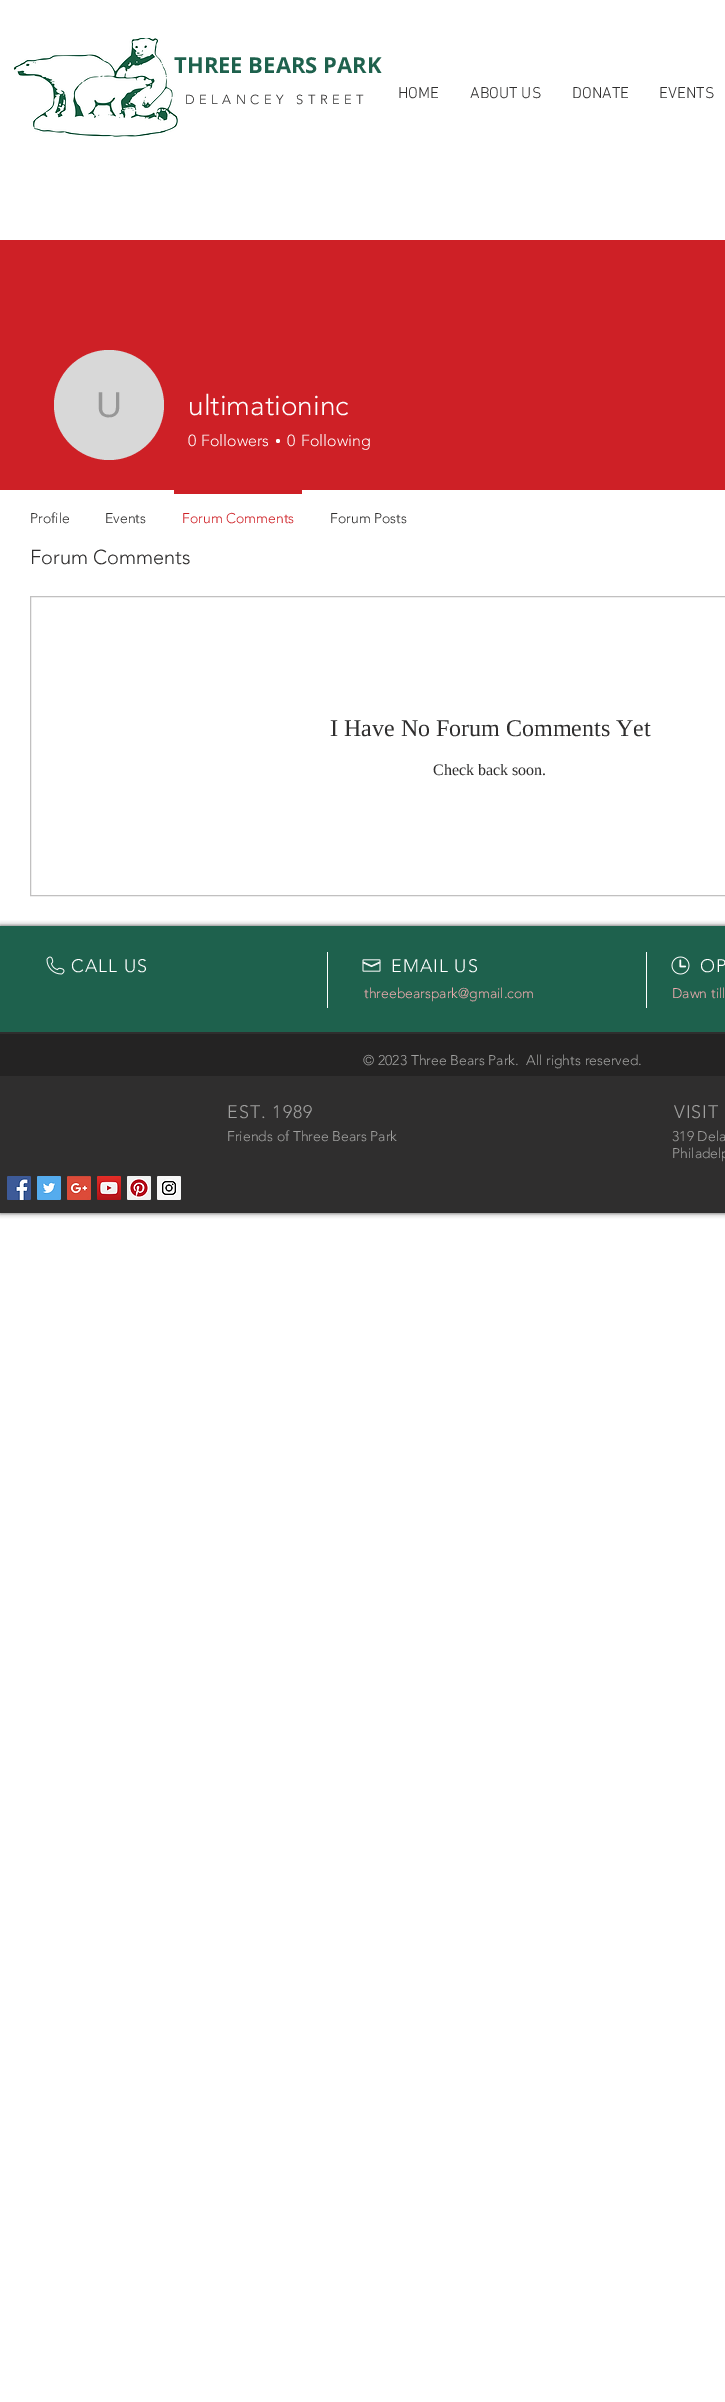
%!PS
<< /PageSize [725 2402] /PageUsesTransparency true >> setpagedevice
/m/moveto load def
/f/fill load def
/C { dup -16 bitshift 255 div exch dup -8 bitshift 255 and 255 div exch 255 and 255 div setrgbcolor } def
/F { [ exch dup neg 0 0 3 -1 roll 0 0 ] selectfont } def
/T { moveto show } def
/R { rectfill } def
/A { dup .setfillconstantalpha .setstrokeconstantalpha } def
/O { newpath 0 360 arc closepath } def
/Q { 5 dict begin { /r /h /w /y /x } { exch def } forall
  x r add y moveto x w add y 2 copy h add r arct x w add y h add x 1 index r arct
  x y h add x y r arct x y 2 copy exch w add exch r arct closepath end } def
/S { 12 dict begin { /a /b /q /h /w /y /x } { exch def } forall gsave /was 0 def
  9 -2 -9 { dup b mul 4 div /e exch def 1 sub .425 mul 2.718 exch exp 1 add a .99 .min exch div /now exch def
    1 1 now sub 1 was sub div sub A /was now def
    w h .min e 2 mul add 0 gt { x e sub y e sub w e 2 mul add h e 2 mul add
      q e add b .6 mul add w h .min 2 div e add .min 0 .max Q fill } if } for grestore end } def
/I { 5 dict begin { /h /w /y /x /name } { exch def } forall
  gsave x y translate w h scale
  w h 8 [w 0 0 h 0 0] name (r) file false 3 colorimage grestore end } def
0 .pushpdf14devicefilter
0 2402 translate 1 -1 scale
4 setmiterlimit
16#FFFFFF C
0 0 725 2402 R
(1.rgb) 13 38 165 99 I
/OpenSans-Bold 22 F
16#1E614D C
(THREE BEARS PARK) 174 73 T
/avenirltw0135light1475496-Light 13 F
16#2F2E2E C
185 104 m 4.5 0 (DELANCEY STREET) ashow
/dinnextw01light-Light 16 F
(HOME) 398 98 T
(ABOUT US) 470 98 T
(DONATE) 572 98 T
(EVENTS) 659 98 T
16#CE2026 C
0 240 725 250 R
16#D8D8D8 C
109 405 55 O f
/LiberationSans-Regular 36 F
16#979797 C
(U) 96 417 T
/avenirltw0135light1475496-Light 28 F
16#FFFFFF C
(ultimationinc) 188 415 T
/avenirltw0135light1475496-Light 16 F
(0) 188 446 T
(Followers) 201 446 T
278 441 2 O f
(0) 287 446 T
(Following) 301 446 T
/avenirltw0135light1475496-Light 14 F
16#2F2E2E C
(Profile) 30 523 T
(Events) 105 523 T
16#CE2026 C
174 490 128 4 R
(Forum Comments) 182 523 T
16#2F2E2E C
(Forum Posts) 330 523 T
/avenirltw0135light1475496-Light 20 F
(Forum Comments) 30 564 T
16#C1C0C0 C
30.5 596.5 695 299 rectstroke
/LiberationSerif-Regular 24 F
16#2F2E2E C
(I Have No Forum Comments Yet) 330 736 T
/LiberationSerif-Regular 16 F
(Check back soon.) 433 775 T
16#000000 C
0 926 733 287 0 2.5 .7 S
16#2F2E2E C
0 1032 725 181 R
16#1E614D C
0 926 725 106 R
(2.rgb) 46 956 19 19 I
/avenirltw0135light1475496-Light 18 F
16#FFFFFF C
71 972 m 1 0 (CALL US) ashow
327 952 1 56 R
(3.rgb) 362 959 19 13 I
391 972 m 1 0 (EMAIL US) ashow
646 952 1 56 R
(4.rgb) 671 956 19 19 I
700 972 m 1 0 (OP) ashow
/avenirltw0135light1475496-Light 14 F
16#EFABAE C
(threebearspark@gmail.com) 364 998 T
(Dawn till) 672 998 T
16#242323 C
0 1034 725 42 R
16#A0A09F C
(© 2023 Three Bears Park.  All rights reserved.) 363 1065 T
/avenirltw0135light1475496-Light 18 F
227 1118 m 1 0 (EST. 1989) ashow
674 1118 m 1 0 (VISIT) ashow
/avenirltw0135light1475496-Light 14 F
(Friends of Three Bears Park) 227 1141 T
(319 Dela) 672 1141 T
(Philadelp) 672 1158 T
(5.rgb) 7 1176 24 24 I
(6.rgb) 37 1176 24 24 I
(7.rgb) 67 1176 24 24 I
(8.rgb) 97 1176 24 24 I
(9.rgb) 127 1176 24 24 I
(10.rgb) 157 1176 24 24 I
.poppdf14devicefilter showpage
